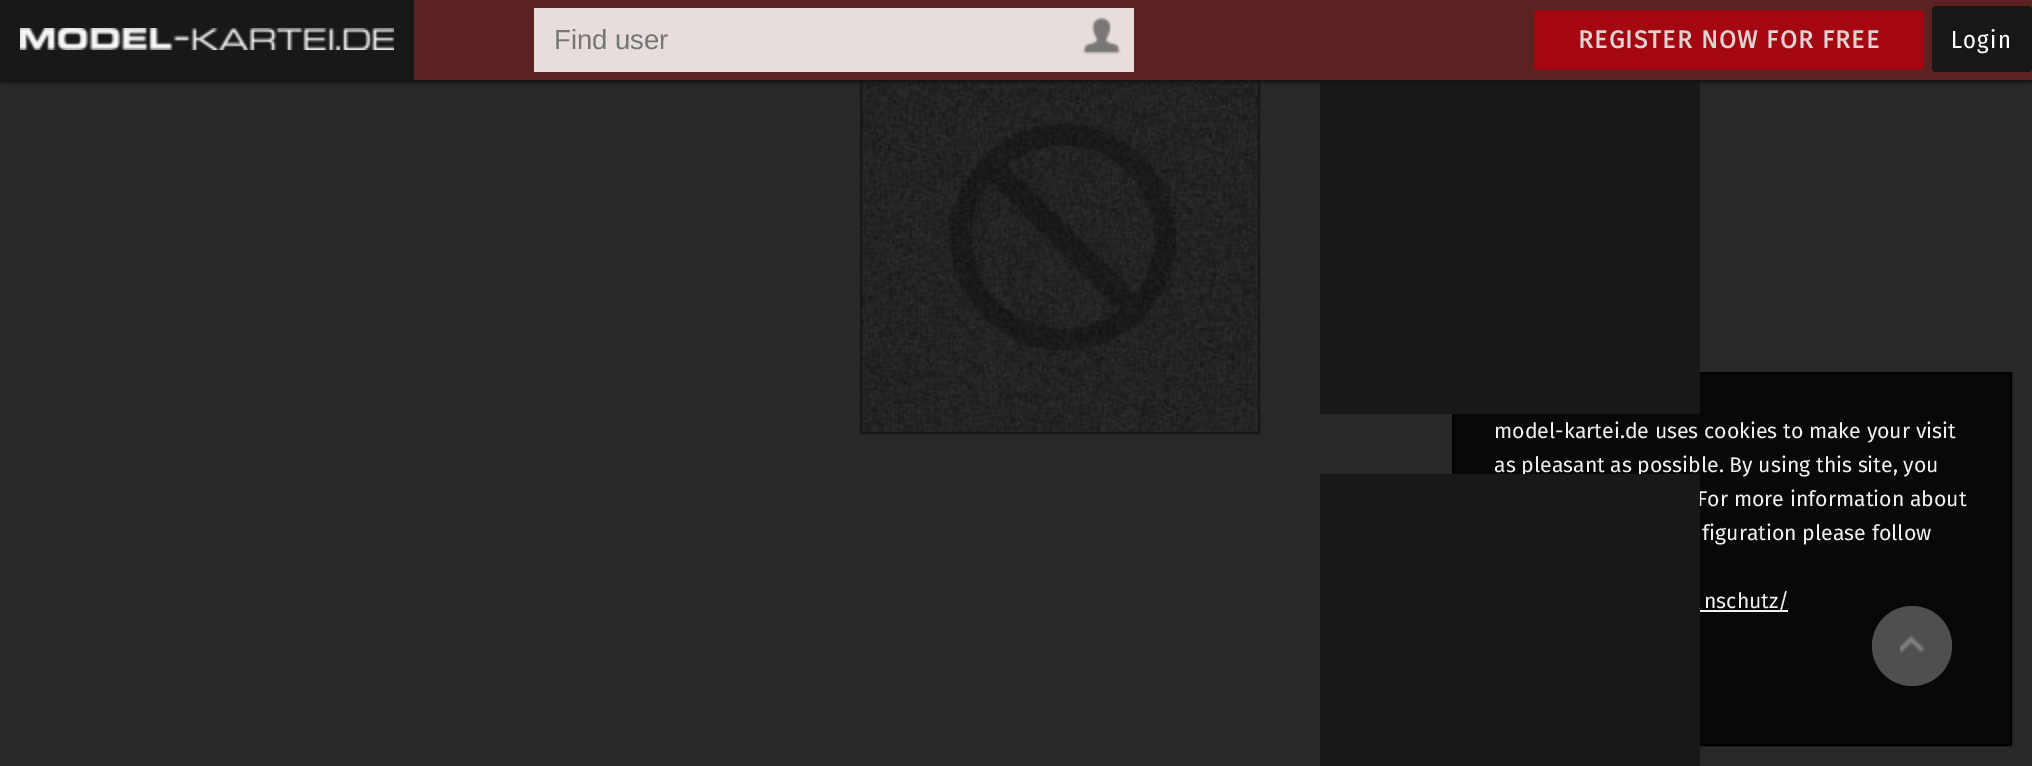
%!PS
<< /PageSize [2032 766] /PageUsesTransparency true >> setpagedevice
/m/moveto load def
/l/rlineto load def
/z/closepath load def
/f/fill load def
/s/stroke load def
/q/gsave load def
/Q_/grestore load def
/w/setlinewidth load def
/C { dup -16 bitshift 255 div exch dup -8 bitshift 255 and 255 div exch 255 and 255 div setrgbcolor } def
/F { [ exch dup neg 0 0 3 -1 roll 0 0 ] selectfont } def
/T { moveto show } def
/R { rectfill } def
/A { dup .setfillconstantalpha .setstrokeconstantalpha } def
/O { newpath 0 360 arc closepath } def
/Q { 5 dict begin { /r /h /w /y /x } { exch def } forall
  x r add y moveto x w add y 2 copy h add r arct x w add y h add x 1 index r arct
  x y h add x y r arct x y 2 copy exch w add exch r arct closepath end } def
/S { 12 dict begin { /a /b /q /h /w /y /x } { exch def } forall gsave /was 0 def
  9 -2 -9 { dup b mul 4 div /e exch def 1 sub .425 mul 2.718 exch exp 1 add a .99 .min exch div /now exch def
    1 1 now sub 1 was sub div sub A /was now def
    w h .min e 2 mul add 0 gt { x e sub y e sub w e 2 mul add h e 2 mul add
      q e add b .6 mul add w h .min 2 div e add .min 0 .max Q fill } if } for grestore end } def
/I { 5 dict begin { /h /w /y /x /name } { exch def } forall
  gsave x y translate w h scale
  w h 8 [w 0 0 h 0 0] name (r) file false 3 colorimage grestore end } def
0 .pushpdf14devicefilter
0 766 translate 1 -1 scale
4 setmiterlimit
16#282828 C
0 0 2032 766 R
(3.rgb) 862 80 396 352 I
16#181818 C
2 w
861 35 398 398 rectstroke
16#080808 C
1453 373 m 558 0 l 0 372 l -558 0 l z q f Q_
16#000000 C
s
16#181818 C
1320 80 380 334 R
16#101010 C
0 2 2032 80 0 2 1 S
16#5C2121 C
414 0 1618 80 R
16#181818 C
0 0 414 80 R
(1.rgb) 20 28 374 22 I
16#E7DDDD C
534 8 600 64 R
/LiberationSans-Regular 27.5 F
16#757575 C
(Find user) 554 49 T
(2.rgb) 1083 17 38 38 I
16#A4070F C
1534 10 390 60 4 Q f
/FiraSans-Bold 24.6 F
16#DED3D3 C
1578 48 m 1.25 0 (REGISTER NOW FOR FREE) ashow
16#171717 C
1932 6 100 66 4 Q f
/FiraSansCondensed-Regular 24.6 F
16#FFFFFF C
1951 48 m 1.25 0 (Login) ashow
/FiraSans-Regular 21.25 F
16#F1F1F1 C
(as pleasant as possible. By using this site, you) 1494 472 T
(For more information about) 1697 506 T
16#181818 C
1320 474 380 292 R
16#F1F1F1 C
(model-kartei.de uses cookies to make your visit) 1494 438 T
(figuration please follow) 1702 540 T
1700 610 88 2 R
(nschutz/) 1704 608 T
16#4F4F4F C
1912 646 40 O f
(4.rgb) 1900 635 25 18 I
.poppdf14devicefilter showpage
